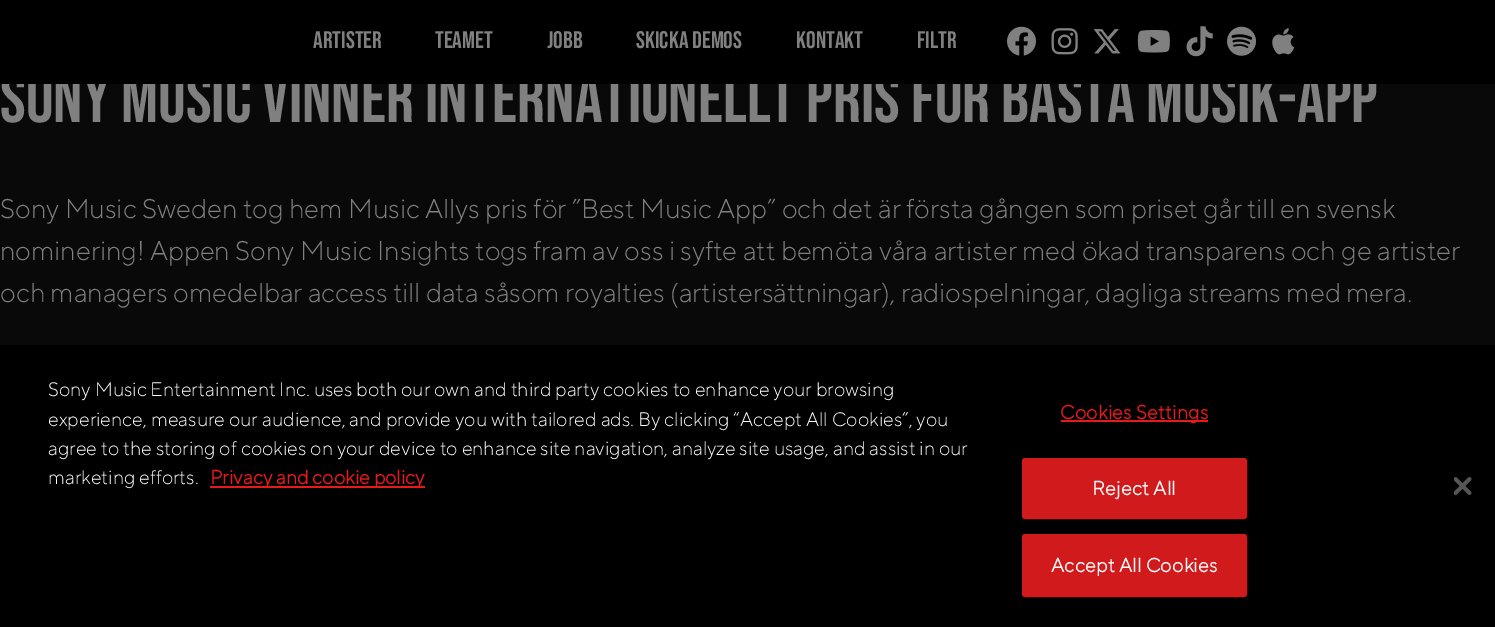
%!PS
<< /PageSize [1495 627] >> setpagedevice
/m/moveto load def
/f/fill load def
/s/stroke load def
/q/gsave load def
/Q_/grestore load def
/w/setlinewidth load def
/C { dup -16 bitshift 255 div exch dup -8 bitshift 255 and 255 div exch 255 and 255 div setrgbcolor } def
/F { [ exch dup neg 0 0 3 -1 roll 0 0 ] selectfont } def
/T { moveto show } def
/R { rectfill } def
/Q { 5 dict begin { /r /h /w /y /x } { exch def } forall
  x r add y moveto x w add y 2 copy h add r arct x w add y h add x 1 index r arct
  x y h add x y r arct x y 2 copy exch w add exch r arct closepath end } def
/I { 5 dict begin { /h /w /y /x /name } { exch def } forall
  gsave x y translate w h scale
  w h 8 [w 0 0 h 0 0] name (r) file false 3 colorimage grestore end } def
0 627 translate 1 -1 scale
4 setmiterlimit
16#090909 C
0 0 1495 627 R
/BebasNeue-Regular 69 F
16#808080 C
(SONY MUSIC VINNER INTERNATIONELLT PRIS FÖR BÄSTA MUSIK-APP) 0 122 T
16#000000 C
0 0 1495 84 R
/BebasNeue-Regular 24 F
16#808080 C
(Artister) 313 48 T
(Teamet) 435 48 T
(Jobb) 547 48 T
(Skicka demos) 636 48 T
(Kontakt) 796 48 T
(Filtr) 917 48 T
(1.rgb) 1007 26 29 30 I
(2.rgb) 1051 28 27 27 I
(3.rgb) 1093 29 28 25 I
(4.rgb) 1137 30 33 23 I
(5.rgb) 1186 26 27 31 I
(6.rgb) 1227 26 30 30 I
(7.rgb) 1272 28 23 27 I
/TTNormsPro-Light 27 F
(Sony Music Sweden tog hem Music Allys pris för ”Best Music App” och det är första gången som priset går till en svensk) 0 218 T
(nominering! Appen Sony Music Insights togs fram av oss i syfte att bemöta våra artister med ökad transparens och ge artister) 0 260 T
(och managers omedelbar access till data såsom royalties \(artistersättningar\), radiospelningar, dagliga streams med mera.) 0 302 T
16#000000 C
0 345 1495 282 R
/TTNormsPro-Light 19.5 F
16#FFFFFF C
(Sony Music Entertainment Inc. uses both our own and third party cookies to enhance your browsing) 48 396 T
(experience, measure our audience, and provide you with tailored ads. By clicking “Accept All Cookies”, you) 48 426 T
(agree to the storing of cookies on your device to enhance site navigation, analyze site usage, and assist in our) 48 455 T
(marketing efforts.) 48 484 T
16#E61A1C C
210 486 215 2 R
/TTNormsPro-Bold 19.5 F
(Privacy and cookie policy) 210 484 T
1061 420 147 2 R
1060 419 m .25 0 (Cookies Settings) ashow
16#D11A1C C
1023 459 223 59 2 Q q f Q_
2 w
s
16#FFFFFF C
1092 495 m .25 0 (Reject All) ashow
16#D11A1C C
1023 535 223 61 2 Q q f Q_
s
16#FFFFFF C
1051 572 m .25 0 (Accept All Cookies) ashow
(8.rgb) 1454 477 18 18 I
showpage
